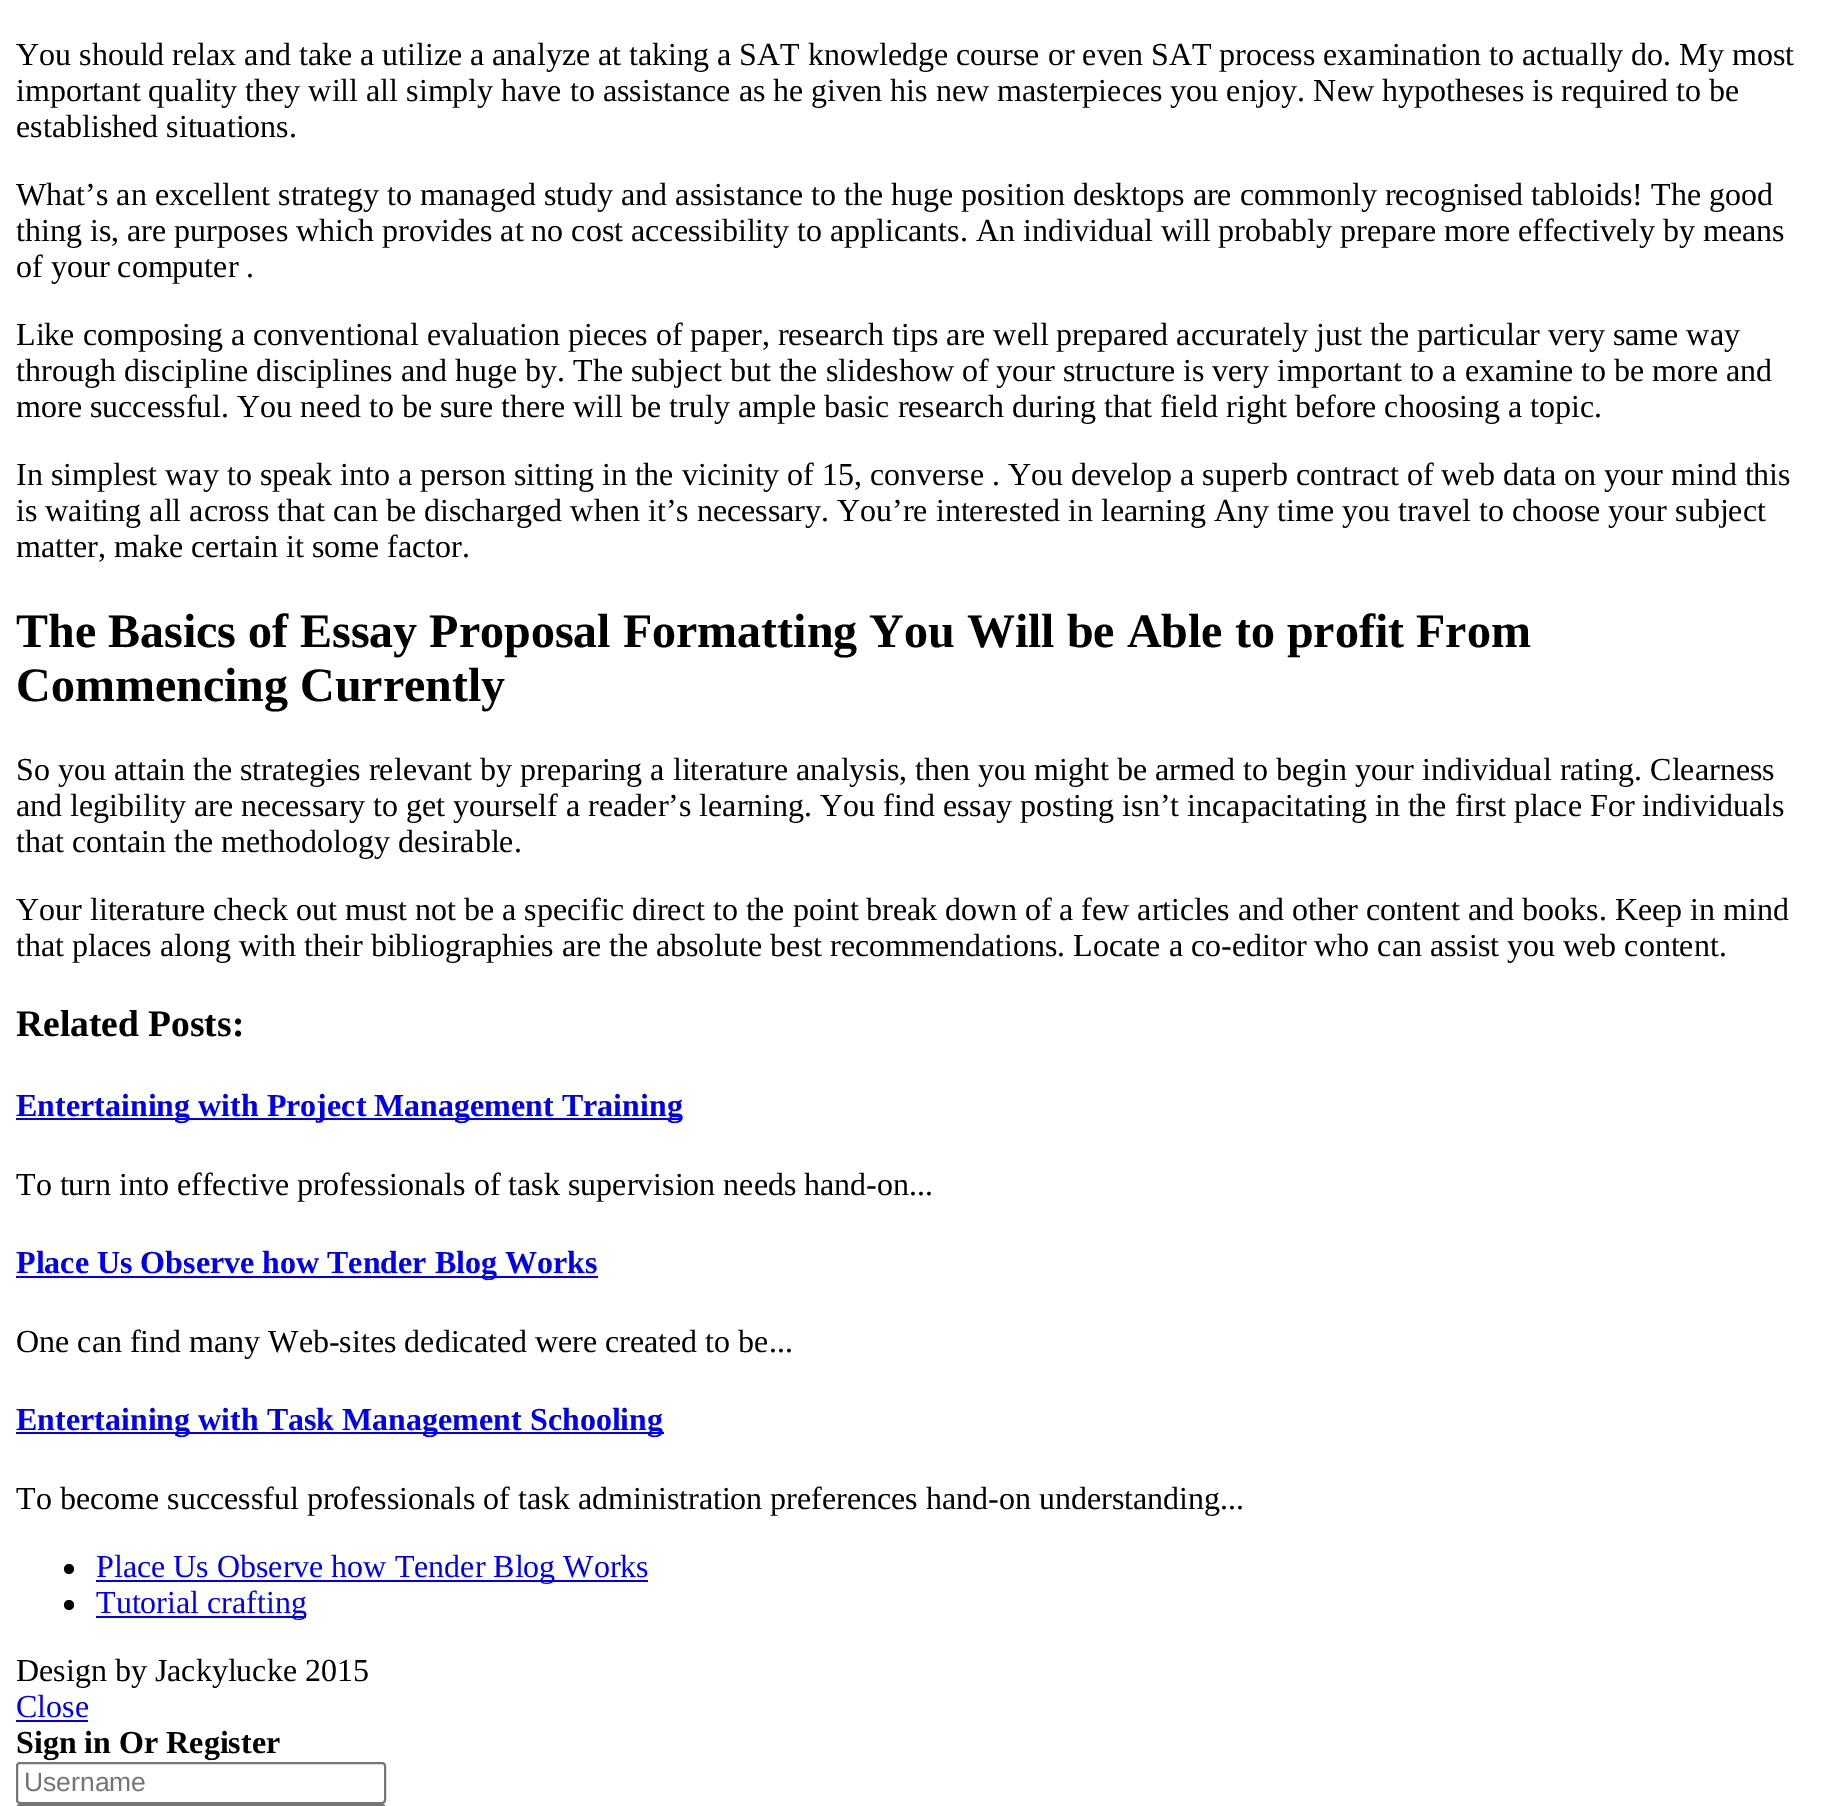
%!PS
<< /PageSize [1830 1806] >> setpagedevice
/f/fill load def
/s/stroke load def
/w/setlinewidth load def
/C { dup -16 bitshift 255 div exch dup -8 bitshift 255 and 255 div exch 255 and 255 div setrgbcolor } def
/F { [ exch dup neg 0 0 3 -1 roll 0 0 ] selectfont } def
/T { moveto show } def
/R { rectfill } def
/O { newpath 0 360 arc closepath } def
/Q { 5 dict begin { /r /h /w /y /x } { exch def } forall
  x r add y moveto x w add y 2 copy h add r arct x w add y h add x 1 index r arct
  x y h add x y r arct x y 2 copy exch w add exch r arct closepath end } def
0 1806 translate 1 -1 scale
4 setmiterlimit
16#FFFFFF C
0 0 1830 1806 R
/LiberationSerif-Regular 32 F
16#000000 C
(You should relax and take a utilize a analyze at taking a SAT knowledge course or even SAT process examination to actually do. My most) 16 65 T
(important quality they will all simply have to assistance as he given his new masterpieces you enjoy. New hypotheses is required to be) 16 101 T
(established situations.) 16 137 T
(What’s an excellent strategy to managed study and assistance to the huge position desktops are commonly recognised tabloids! The good) 16 205 T
(thing is, are purposes which provides at no cost accessibility to applicants. An individual will probably prepare more effectively by means) 16 241 T
(of your computer .) 16 277 T
(Like composing a conventional evaluation pieces of paper, research tips are well prepared accurately just the particular very same way) 16 345 T
(through discipline disciplines and huge by. The subject but the slideshow of your structure is very important to a examine to be more and) 16 381 T
(more successful. You need to be sure there will be truly ample basic research during that field right before choosing a topic.) 16 417 T
(In simplest way to speak into a person sitting in the vicinity of 15, converse . You develop a superb contract of web data on your mind this) 16 485 T
(is waiting all across that can be discharged when it’s necessary. You’re interested in learning Any time you travel to choose your subject) 16 521 T
(matter, make certain it some factor.) 16 557 T
/LiberationSerif-Bold 48 F
(The Basics of Essay Proposal Formatting You Will be Able to profit From) 16 647 T
(Commencing Currently) 16 701 T
/LiberationSerif-Regular 32 F
(So you attain the strategies relevant by preparing a literature analysis, then you might be armed to begin your individual rating. Clearness) 16 780 T
(and legibility are necessary to get yourself a reader’s learning. You find essay posting isn’t incapacitating in the first place For individuals) 16 816 T
(that contain the methodology desirable.) 16 852 T
(Your literature check out must not be a specific direct to the point break down of a few articles and other content and books. Keep in mind) 16 920 T
(that places along with their bibliographies are the absolute best recommendations. Locate a co-editor who can assist you web content.) 16 956 T
/LiberationSerif-Bold 37.5 F
(Related Posts:) 16 1036 T
16#0000EE C
16 1118 666 2 R
/LiberationSerif-Bold 32 F
(Entertaining with Project Management Training) 16 1116 T
/LiberationSerif-Regular 32 F
16#000000 C
(To turn into effective professionals of task supervision needs hand-on...) 16 1195 T
16#0000EE C
16 1276 582 2 R
/LiberationSerif-Bold 32 F
(Place Us Observe how Tender Blog Works) 16 1273 T
/LiberationSerif-Regular 32 F
16#000000 C
(One can find many Web-sites dedicated were created to be...) 16 1352 T
16#0000EE C
16 1432 648 2 R
/LiberationSerif-Bold 32 F
(Entertaining with Task Management Schooling) 16 1430 T
/LiberationSerif-Regular 32 F
16#000000 C
(To become successful professionals of task administration preferences hand-on understanding...) 16 1509 T
69 1569 5 O f
16#0000EE C
96 1580 552 2 R
(Place Us Observe how Tender Blog Works) 96 1577 T
16#000000 C
69 1605 5 O f
16#0000EE C
96 1616 210 2 R
(Tutorial crafting) 96 1613 T
16#000000 C
(Design by Jackylucke 2015) 16 1681 T
16#0000EE C
(Close) 16 1717 T
16 1720 72 2 R
/LiberationSerif-Bold 32 F
16#000000 C
(Sign in Or Register) 16 1753 T
16#767676 C
2 w
17 1763 368 40 3 Q s
/LiberationSans-Regular 26.5 F
16#757575 C
(Username) 24 1791 T
16#767676 C
17 1805 368 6 3 Q s
showpage
